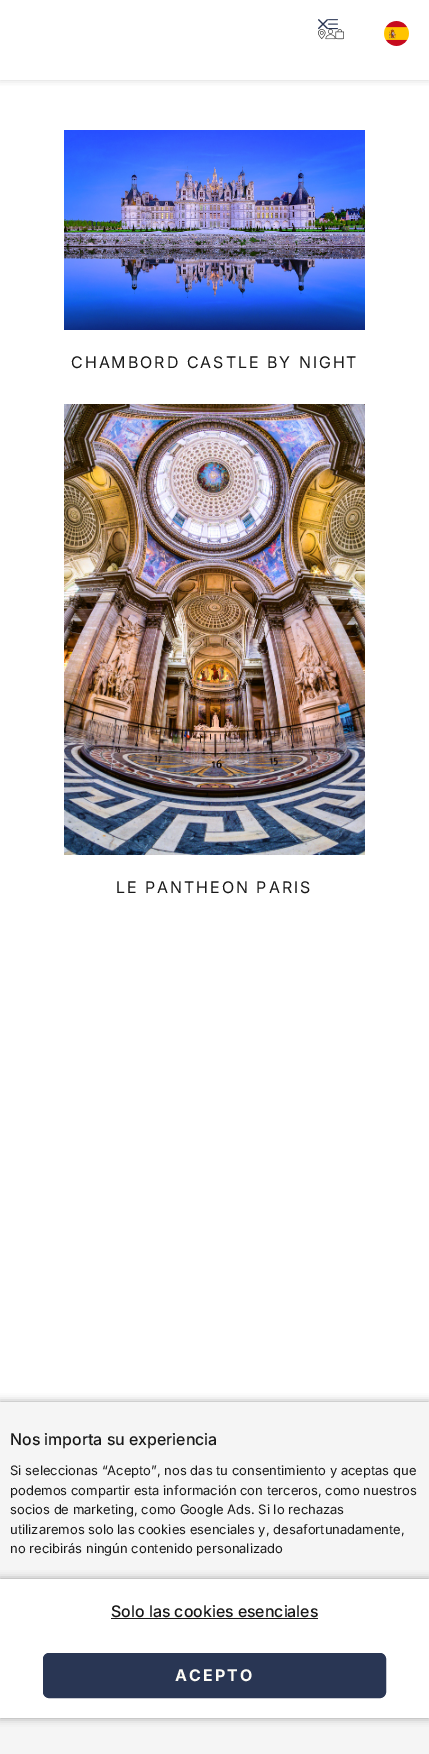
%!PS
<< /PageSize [429 1754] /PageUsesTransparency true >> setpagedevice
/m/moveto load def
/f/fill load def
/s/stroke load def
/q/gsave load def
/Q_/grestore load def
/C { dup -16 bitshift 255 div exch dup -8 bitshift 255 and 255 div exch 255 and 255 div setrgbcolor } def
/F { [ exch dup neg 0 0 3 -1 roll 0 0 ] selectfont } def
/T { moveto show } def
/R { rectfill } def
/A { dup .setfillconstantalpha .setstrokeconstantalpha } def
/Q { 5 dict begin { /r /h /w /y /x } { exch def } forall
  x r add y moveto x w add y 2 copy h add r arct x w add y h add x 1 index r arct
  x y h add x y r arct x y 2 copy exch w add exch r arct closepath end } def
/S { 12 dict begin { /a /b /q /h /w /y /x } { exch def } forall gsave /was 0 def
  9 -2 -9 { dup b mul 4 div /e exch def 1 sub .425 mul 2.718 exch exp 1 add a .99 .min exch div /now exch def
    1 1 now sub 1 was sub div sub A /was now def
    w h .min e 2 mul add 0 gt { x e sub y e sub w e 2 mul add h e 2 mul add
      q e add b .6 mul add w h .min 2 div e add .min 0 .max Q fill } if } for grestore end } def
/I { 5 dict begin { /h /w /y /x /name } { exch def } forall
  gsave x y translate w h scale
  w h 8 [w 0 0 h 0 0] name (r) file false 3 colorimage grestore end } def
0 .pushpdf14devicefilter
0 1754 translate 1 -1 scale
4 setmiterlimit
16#FFFFFF C
0 0 429 1754 R
q
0 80 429 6 rectclip
16#6F6F6F C
0 0 429 80 0 4 .3 S
Q_
(1.rgb) 318 19 26 21 I
(2.rgb) 384 21 25 25 I
(3.rgb) 64 130 301 200 I
/Inter-Regular 16 F
16#191919 C
71 368 m 2 0 (CHAMBORD CASTLE BY NIGHT) ashow
(4.rgb) 64 404 301 451 I
116 893 m 2 0 (LE PANTHEON PARIS) ashow
16#6F6F6F C
0 1402 429 352 0 4 .66 S
16#F5F5F5 C
0 1402 429 352 R
/Inter-Medium 16 F
16#191919 C
(Nos importa su experiencia) 10 1445 T
/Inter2-Regular 13 F
(Si seleccionas “Acepto”, nos das tu consentimiento y aceptas que) 10 1475 T
(podemos compartir esta información con terceros, como nuestros) 10 1495 T
(socios de marketing, como Google Ads. Si lo rechazas) 10 1514 T
(utilizaremos solo las cookies esenciales y, desafortunadamente,) 10 1534 T
(no recibirás ningún contenido personalizado) 10 1553 T
16#6F6F6F C
0 1579 429 139 0 4 .66 S
16#FFFFFF C
0 1579 429 139 R
/Inter-Medium 16 F
16#191919 C
(Solo las cookies esenciales) 111 1617 T
111 1618 207 1 R
16#293654 C
43.5 1653.5 342 44 5.5 Q q f Q_
s
/Inter-Bold 16 F
16#FDFCF6 C
175 1681 m 2 0 (ACEPTO) ashow
.poppdf14devicefilter showpage
